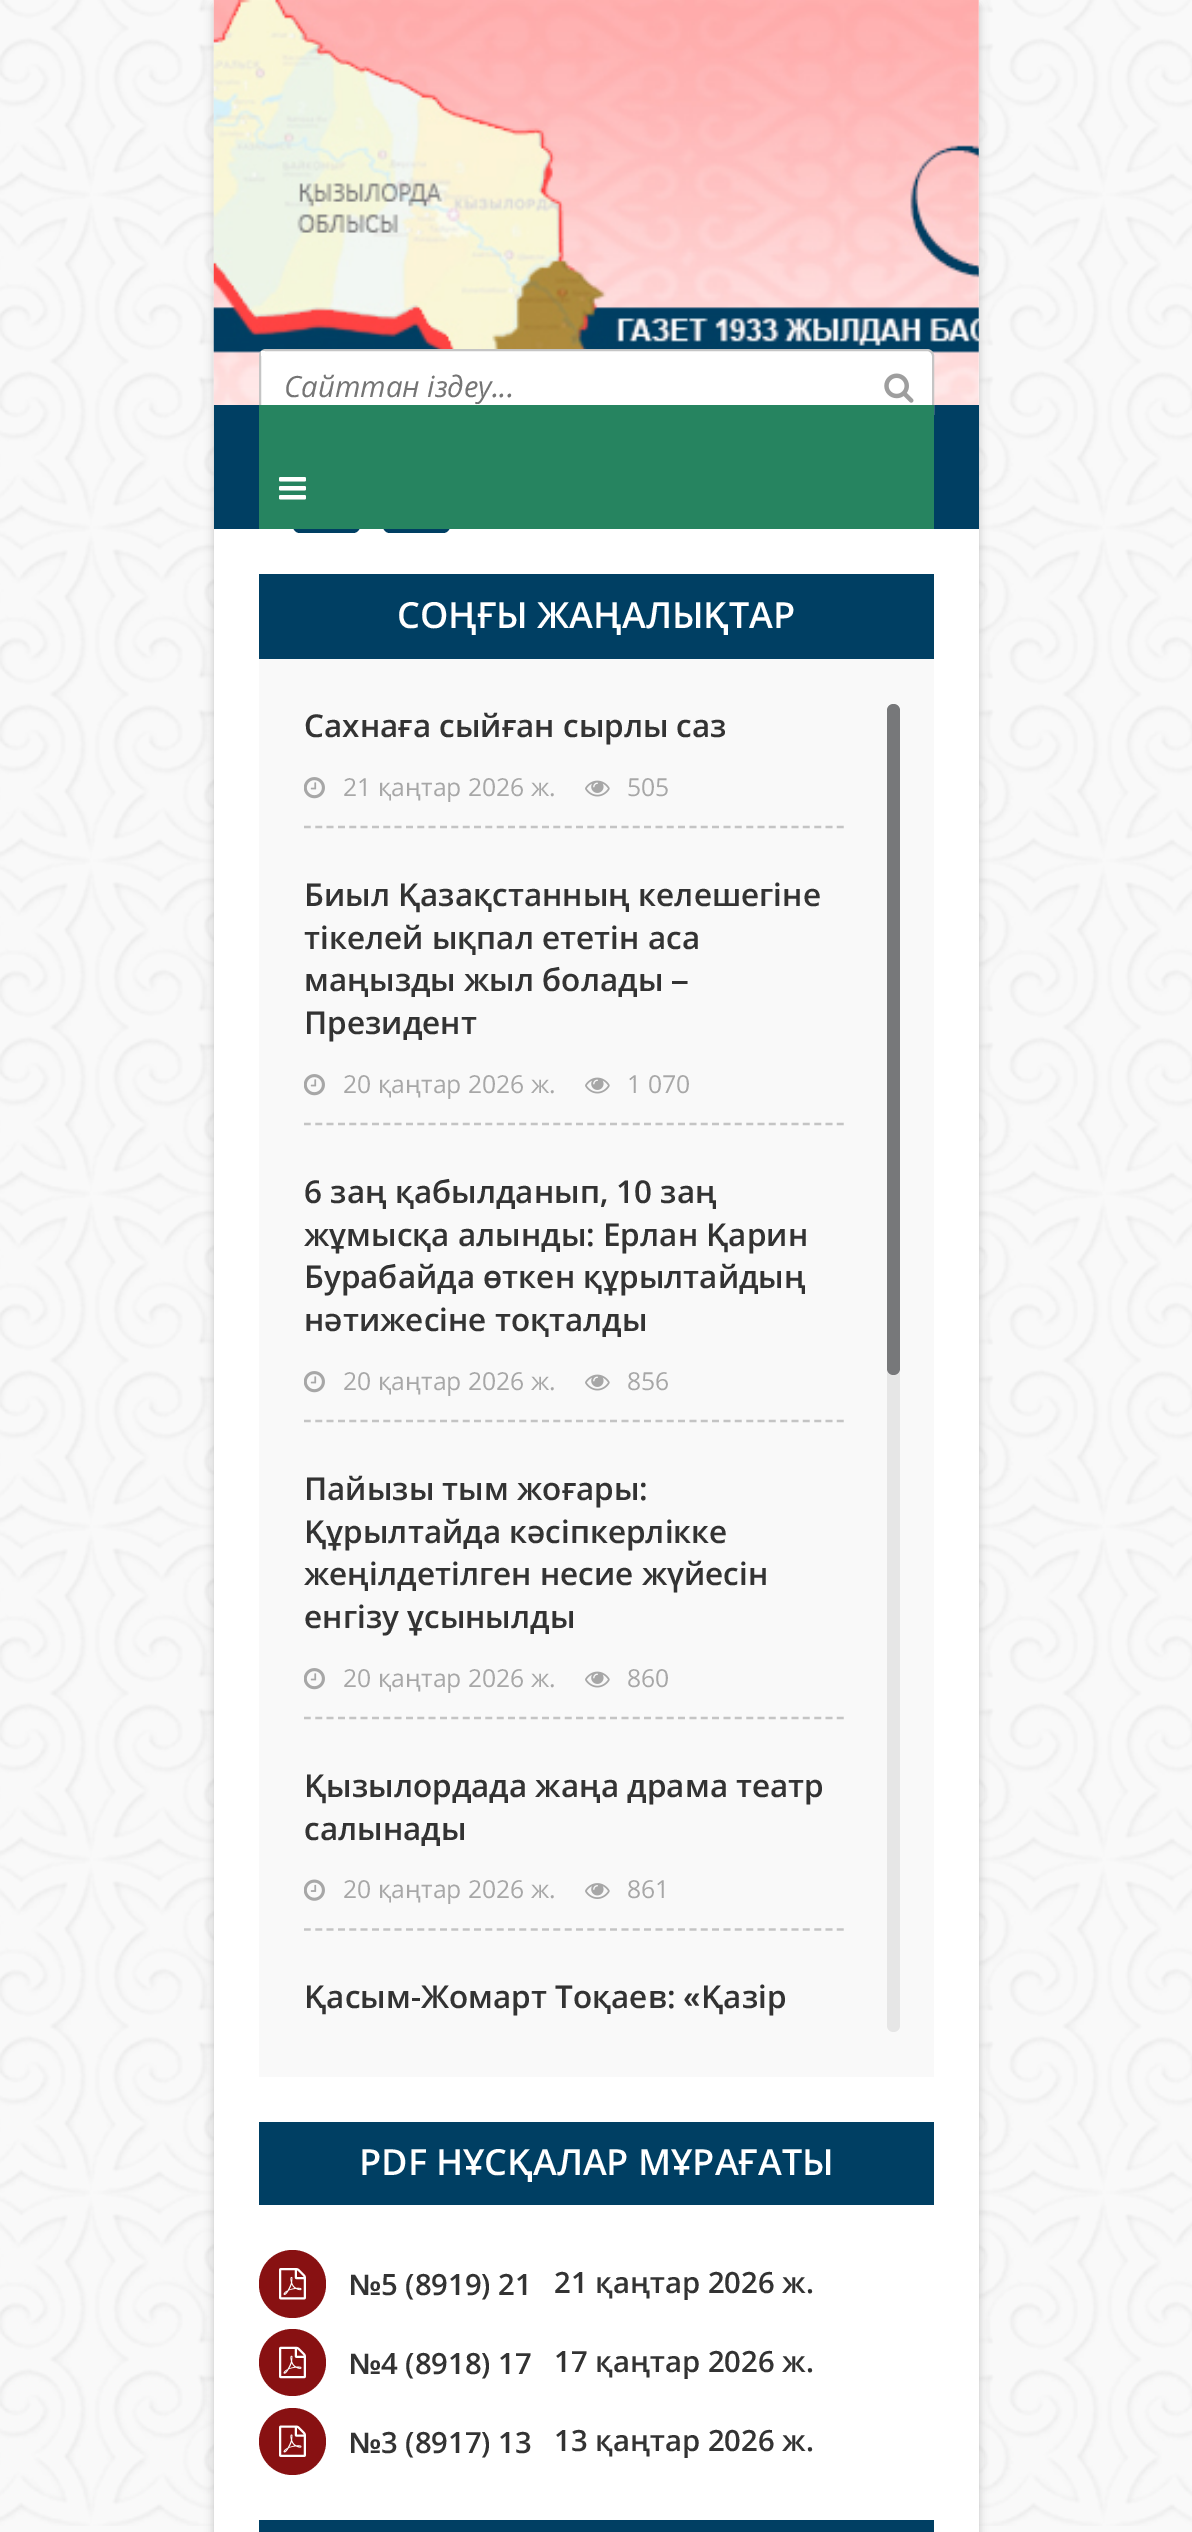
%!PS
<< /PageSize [1192 2532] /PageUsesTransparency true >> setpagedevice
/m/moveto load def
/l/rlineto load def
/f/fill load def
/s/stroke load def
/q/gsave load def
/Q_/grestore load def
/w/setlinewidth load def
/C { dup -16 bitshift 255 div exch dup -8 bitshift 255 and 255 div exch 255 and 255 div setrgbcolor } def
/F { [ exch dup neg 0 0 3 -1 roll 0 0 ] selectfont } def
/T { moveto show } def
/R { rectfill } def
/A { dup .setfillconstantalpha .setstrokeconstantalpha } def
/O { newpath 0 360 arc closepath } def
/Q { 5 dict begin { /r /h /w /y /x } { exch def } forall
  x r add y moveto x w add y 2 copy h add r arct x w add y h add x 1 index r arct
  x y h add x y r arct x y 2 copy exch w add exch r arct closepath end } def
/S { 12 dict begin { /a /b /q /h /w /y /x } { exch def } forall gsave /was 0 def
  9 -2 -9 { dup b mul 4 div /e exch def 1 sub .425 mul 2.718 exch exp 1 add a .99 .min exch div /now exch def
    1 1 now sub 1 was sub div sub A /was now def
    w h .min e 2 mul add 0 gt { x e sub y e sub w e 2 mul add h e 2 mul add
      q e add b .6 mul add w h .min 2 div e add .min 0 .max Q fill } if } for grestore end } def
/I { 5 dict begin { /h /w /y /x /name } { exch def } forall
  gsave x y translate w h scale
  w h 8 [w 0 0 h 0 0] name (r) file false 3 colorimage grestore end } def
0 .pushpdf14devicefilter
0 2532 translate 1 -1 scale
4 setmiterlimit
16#F9F9F9 C
0 0 1192 2532 R
(1.rgb) 0 0 1192 2526 I
16#000000 C
214 5 765 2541 0 4.5 .2 S
16#FFFFFF C
214 0 765 2532 R
(2.rgb) 213 0 766 405 I
16#003F63 C
214 405 765 124 R
16#FFFFFF C
260 350 673 70 6 Q q f Q_
16#C5C5C5 C
2 w
s
16#FFFFFF C
261 351 4 5 R
/OpenSans-Italic 29.25 F
16#757575 C
(Сайттан іздеу...) 284 397 T
(3.rgb) 884 373 30 30 I
16#003F63 C
293 466 67 67 7 Q f
383 466 67 67 7 Q f
16#268460 C
259 405 675 124 R
(4.rgb) 279 477 27 23 I
16#F9F9F9 C
259 659 675 1418 R
16#003F63 C
259 574 675 85 R
/OpenSans-SemiBold 36 F
16#FFFFFF C
(СОҢҒЫ ЖАҢАЛЫҚТАР) 397 628 T
16#C4C4C4 C
2.2 w
[6.75 4.59] 0 setdash
304 827 m 540 0 l s
/OpenSans-SemiBold 31.5 F
16#333333 C
(Сахнаға сыйған сырлы саз) 304 737 T
(5.rgb) 304 777 21 22 I
/OpenSans-Regular 24.75 F
16#A7A7A7 C
(21 қаңтар 2026 ж.) 343 796 T
(6.rgb) 585 780 25 17 I
(505) 627 796 T
16#C4C4C4 C
304 1124 m 540 0 l s
/OpenSans-SemiBold 31.5 F
16#333333 C
(Биыл Қазақстанның келешегіне) 304 906 T
(тікелей ықпал ететін аса) 304 949 T
(маңызды жыл болады) 304 991 T
/LiberationSans-Bold 31.5 F
(–) 671 991 T
/OpenSans-SemiBold 31.5 F
(Президент) 304 1034 T
(5.rgb) 304 1074 21 22 I
/OpenSans-Regular 24.75 F
16#A7A7A7 C
(20 қаңтар 2026 ж.) 343 1093 T
(6.rgb) 585 1077 25 17 I
(1 070) 627 1093 T
16#C4C4C4 C
304 1421 m 540 0 l s
/OpenSans-SemiBold 31.5 F
16#333333 C
(6 заң қабылданып, 10 заң) 304 1203 T
(жұмысқа алынды: Ерлан Қарин) 304 1246 T
(Бурабайда өткен құрылтайдың) 304 1288 T
(нәтижесіне тоқталды) 304 1331 T
(5.rgb) 304 1371 21 22 I
/OpenSans-Regular 24.75 F
16#A7A7A7 C
(20 қаңтар 2026 ж.) 343 1390 T
(6.rgb) 585 1374 25 17 I
(856) 627 1390 T
16#C4C4C4 C
304 1718 m 540 0 l s
/OpenSans-SemiBold 31.5 F
16#333333 C
(Пайызы тым жоғары:) 304 1500 T
(Құрылтайда кәсіпкерлікке) 304 1543 T
(жеңілдетілген несие жүйесін) 304 1585 T
(енгізу ұсынылды) 304 1628 T
(5.rgb) 304 1668 21 22 I
/OpenSans-Regular 24.75 F
16#A7A7A7 C
(20 қаңтар 2026 ж.) 343 1687 T
(6.rgb) 585 1671 25 17 I
(860) 627 1687 T
16#C4C4C4 C
304 1929.5 m 540 0 l s
/OpenSans-SemiBold 31.5 F
16#333333 C
(Қызылордада жаңа драма театр) 304 1797 T
(салынады) 304 1840 T
(7.rgb) 304 1879 21 22 I
/OpenSans-Regular 24.75 F
16#A7A7A7 C
(20 қаңтар 2026 ж.) 343 1898 T
(8.rgb) 585 1883 25 16 I
(861) 627 1898 T
/OpenSans-SemiBold 31.5 F
16#333333 C
(Қасым-Жомарт Тоқаев:) 304 2008 T
/LiberationSans-Bold 31.5 F
(«) 683 2008 T
/OpenSans-SemiBold 31.5 F
(Қазір) 701 2008 T
16#E6E6E6 C
887 704 13 1328 6.5 Q f
16#77787A C
887 704 13 671 6.5 Q f
16#003F63 C
259 2122 675 83 R
/OpenSans-SemiBold 36 F
16#FFFFFF C
(PDF НҰСҚАЛАР МҰРАҒАТЫ) 359 2175 T
16#881112 C
259 2250 67 68 33.5 Q f
(9.rgb) 279 2268 27 32 I
/LiberationSans-Bold 29.25 F
16#333333 C
(№) 349 2295 T
/OpenSans-SemiBold 29.25 F
(5 \(8919\) 21) 381 2295 T
(21 қаңтар 2026 ж.) 554 2293 T
16#881112 C
292.5 2362.5 33.5 O f
(10.rgb) 279 2346 27 33 I
/LiberationSans-Bold 29.25 F
16#333333 C
(№) 349 2374 T
/OpenSans-SemiBold 29.25 F
(4 \(8918\) 17) 381 2374 T
(17 қаңтар 2026 ж.) 554 2372 T
16#881112 C
292.5 2441.5 33.5 O f
(11.rgb) 279 2425 27 32 I
/LiberationSans-Bold 29.25 F
16#333333 C
(№) 349 2453 T
/OpenSans-SemiBold 29.25 F
(3 \(8917\) 13) 381 2453 T
(13 қаңтар 2026 ж.) 554 2451 T
16#003F63 C
259 2520 675 12 R
.poppdf14devicefilter showpage
